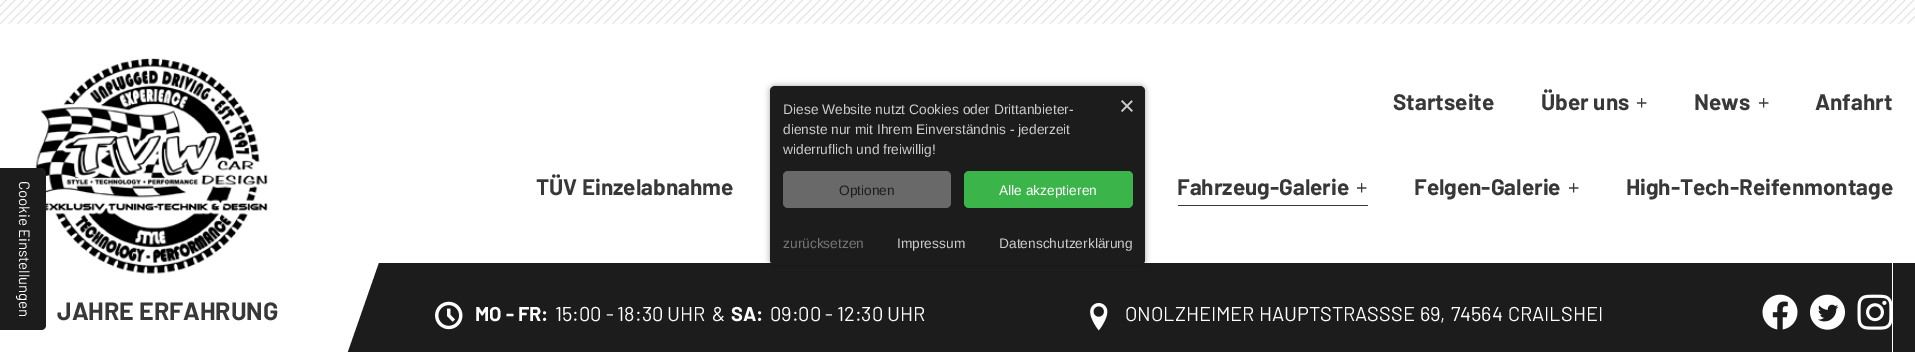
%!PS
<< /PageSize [1915 352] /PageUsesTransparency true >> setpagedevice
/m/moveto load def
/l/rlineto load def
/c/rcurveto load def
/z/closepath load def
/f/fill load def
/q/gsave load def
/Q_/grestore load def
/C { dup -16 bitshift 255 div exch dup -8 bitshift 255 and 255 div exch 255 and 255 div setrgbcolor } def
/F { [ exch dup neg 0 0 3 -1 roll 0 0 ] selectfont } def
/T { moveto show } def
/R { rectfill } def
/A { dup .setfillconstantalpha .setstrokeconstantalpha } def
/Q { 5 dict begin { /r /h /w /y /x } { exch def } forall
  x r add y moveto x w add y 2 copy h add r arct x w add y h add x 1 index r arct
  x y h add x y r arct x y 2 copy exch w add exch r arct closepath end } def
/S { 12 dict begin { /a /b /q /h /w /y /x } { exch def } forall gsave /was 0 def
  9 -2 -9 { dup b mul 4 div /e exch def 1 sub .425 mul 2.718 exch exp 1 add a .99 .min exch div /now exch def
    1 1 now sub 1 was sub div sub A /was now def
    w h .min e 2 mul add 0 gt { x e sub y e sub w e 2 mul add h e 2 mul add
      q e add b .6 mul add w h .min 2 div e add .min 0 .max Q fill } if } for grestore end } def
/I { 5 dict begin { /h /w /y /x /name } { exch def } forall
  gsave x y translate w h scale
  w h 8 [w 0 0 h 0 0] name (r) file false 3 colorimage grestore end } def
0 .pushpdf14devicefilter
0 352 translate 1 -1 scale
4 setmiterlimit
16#FFFFFF C
0 0 1915 352 R
(1.rgb) 0 0 1915 24 I
(2.rgb) 35 58 233 216 I
/Barlow-Bold 25 F
16#383838 C
(JAHRE ERFAHRUNG) 57 320 T
/Barlow-Bold 22.5 F
(Startseite) 1393 110 T
(Über uns) 1541 110 T
/Barlow-Regular 22.5 F
(+) 1636 110 T
/Barlow-Bold 22.5 F
(News) 1694 110 T
/Barlow-Regular 22.5 F
(+) 1758 110 T
/Barlow-Bold 22.5 F
(Anfahrt) 1815 110 T
(TÜV Einzelabnahme) 536 195 T
(Fahrzeug-Galerie) 1177 195 T
/Barlow-Regular 22.5 F
(+) 1356 195 T
1178 205 190 1 R
/Barlow-Bold 22.5 F
(Felgen-Galerie) 1414 195 T
/Barlow-Regular 22.5 F
(+) 1568 195 T
/Barlow-Bold 22.5 F
(High-Tech-Reifenmontage) 1626 195 T
16#1C1C1C C
1892 263 m 0 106 l -1550 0 l 37 -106 l z f
1893 263 22 89 R
(3.rgb) 435 301 28 29 I
/Barlow-Bold 20 F
16#FFFFFF C
(MO - FR:) 475 321 T
/Barlow-Regular 20 F
(15:00 - 18:30 UHR) 555 321 T
(&) 712 321 T
/Barlow-Bold 20 F
(SA:) 731 321 T
/Barlow-Regular 20 F
(09:00 - 12:30 UHR) 770 321 T
(4.rgb) 1090 303 18 28 I
(ONOLZHEIMER HAUPTSTRASS) 1125 321 T
1391 321 m 1 0 32 (SE 69, 74564 CRAILSHEI) widthshow
(5.rgb) 1762 294 36 36 I
(6.rgb) 1810 294 35 36 I
(7.rgb) 1857 294 35 36 I
16#1C1C1C C
46 173 m 0 152 l 0 3 -2 5 -5 5 c -41 0 l 0 -162 l 41 0 l 3 0 5 3 5 5 c z f
/Barlow-Regular 15 F
16#FFFFFF C
q 19 181 translate 90 rotate 0 0 m (Cookie Einstellungen) show Q_
16#000000 C
770 86 375 179 5 3 .35 S
16#1C1C1C C
770 86 375 179 5 Q f
/LiberationSans-Regular 27 F
16#CDCDCD C
(×) 1119 115 T
/LiberationSans-Regular 13.75 F
(Diese Website nutzt Cookies oder Drittanbieter-) 783 114 T
(dienste nur mit Ihrem Einverständnis - jederzeit) 783 134 T
(widerruflich und freiwillig!) 783 154 T
16#696969 C
783 171 168 37 5 Q f
16#1C1C1C C
(Optionen) 839 195 T
16#3BB54A C
964 171 169 37 5 Q f
16#FFFFFF C
(Alle akzeptieren) 999 195 T
16#757575 C
(zurücksetzen) 783 248 T
16#CDCDCD C
(Impressum) 897 248 T
(Datenschutzerklärung) 999 248 T
.poppdf14devicefilter showpage
